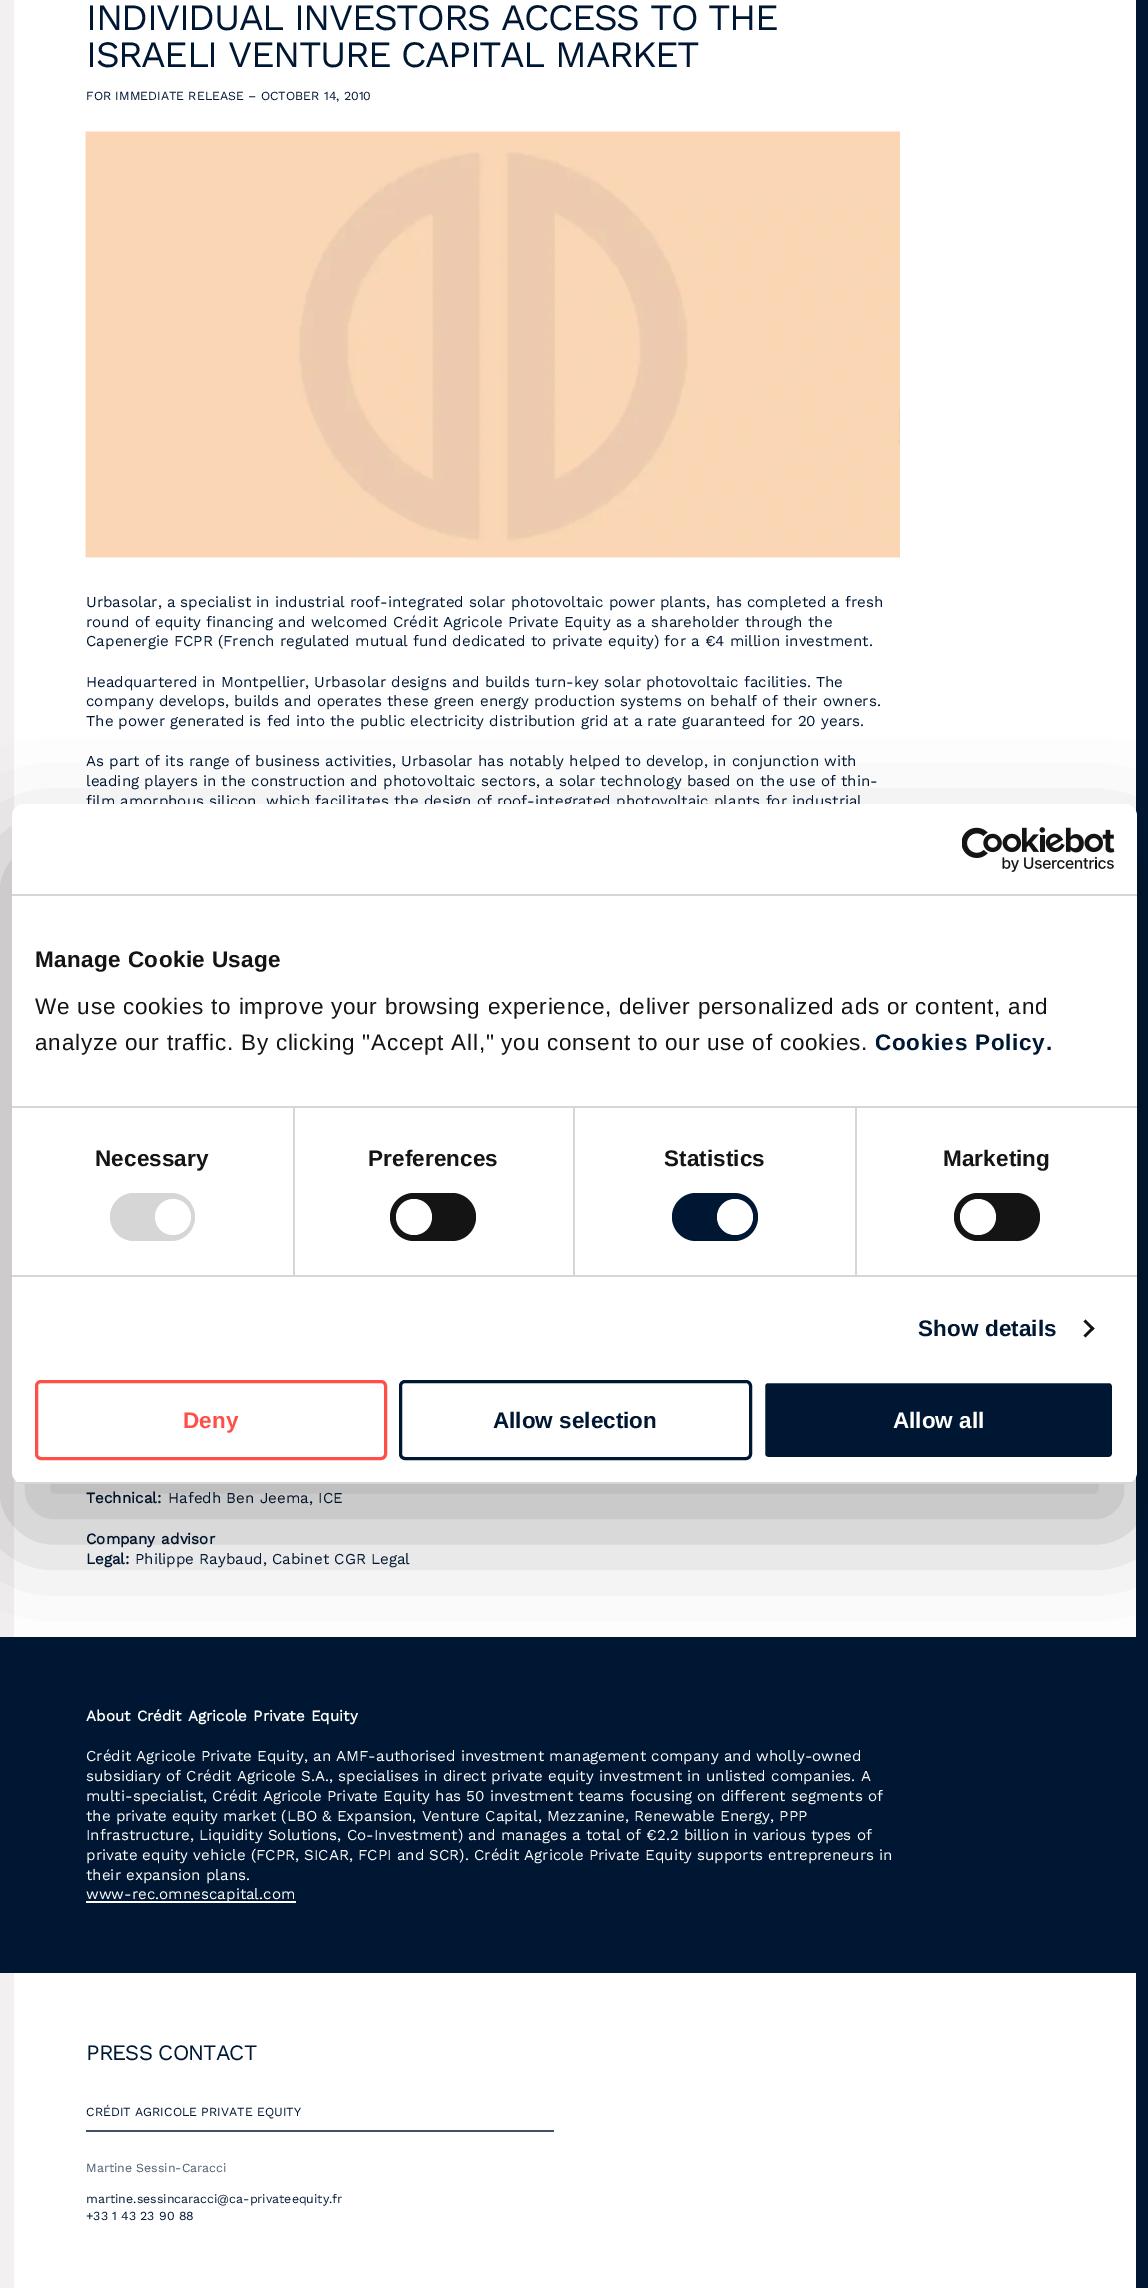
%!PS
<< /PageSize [1148 2288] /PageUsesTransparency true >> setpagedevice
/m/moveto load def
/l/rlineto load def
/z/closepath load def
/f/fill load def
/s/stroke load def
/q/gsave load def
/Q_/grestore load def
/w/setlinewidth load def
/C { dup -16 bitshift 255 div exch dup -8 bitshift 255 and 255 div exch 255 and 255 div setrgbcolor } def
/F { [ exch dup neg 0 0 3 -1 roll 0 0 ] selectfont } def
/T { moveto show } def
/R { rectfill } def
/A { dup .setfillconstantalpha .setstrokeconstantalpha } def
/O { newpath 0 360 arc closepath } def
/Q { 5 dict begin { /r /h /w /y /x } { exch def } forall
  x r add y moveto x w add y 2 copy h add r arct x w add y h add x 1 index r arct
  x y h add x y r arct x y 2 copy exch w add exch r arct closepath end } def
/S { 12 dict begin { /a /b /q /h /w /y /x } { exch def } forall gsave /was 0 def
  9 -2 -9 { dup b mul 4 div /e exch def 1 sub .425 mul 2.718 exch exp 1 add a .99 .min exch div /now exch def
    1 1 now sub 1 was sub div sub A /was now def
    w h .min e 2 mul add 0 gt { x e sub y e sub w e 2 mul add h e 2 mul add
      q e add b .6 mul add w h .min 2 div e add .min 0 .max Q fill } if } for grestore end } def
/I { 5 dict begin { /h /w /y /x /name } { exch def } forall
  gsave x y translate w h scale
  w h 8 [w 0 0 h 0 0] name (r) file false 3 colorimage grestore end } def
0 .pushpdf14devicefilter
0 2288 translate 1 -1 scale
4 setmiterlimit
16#FFFFFF C
0 0 1148 2288 R
16#F2F0F0 C
0 0 14 1637 R
/WorkSans-Regular 37.25 F
16#001733 C
86 30 m -1.5 0 (INDIVIDUAL INVESTORS ACCESS TO THE) ashow
86 67 m -1.5 0 (ISRAELI VENTURE CAPITAL MARKET) ashow
/WorkSans-Regular 12.4 F
(FOR IMMEDIATE RELEASE – OCTOBER 14, 2010) 86 100 T
(1.rgb) 85 131 815 427 I
1136 0 12 1637 R
/WorkSans-Regular 15.17 F
(Urbasolar, a specialist in industrial roof-integrated solar photovoltaic power plants, has completed a fresh) 86 607 T
(round of equity financing and welcomed Crédit Agricole Private Equity as a shareholder through the) 86 627 T
(Capenergie FCPR \(French regulated mutual fund dedicated to private equity\) for a €4 million investment.) 86 646 T
(Headquartered in Montpellier, Urbasolar designs and builds turn-key solar photovoltaic facilities. The) 86 687 T
(company develops, builds and operates these green energy production systems on behalf of their owners.) 86 706 T
(The power generated is fed into the public electricity distribution grid at a rate guaranteed for 20 years.) 86 726 T
(As part of its range of business activities, Urbasolar has notably helped to develop, in conjunction with) 86 766 T
(leading players in the construction and photovoltaic sectors, a solar technology based on the use of thin-) 86 786 T
(film amorphous silicon, which facilitates the design of roof-integrated photovoltaic plants for industrial) 86 806 T
/WorkSans-Bold 15.17 F
(Technical:) 86 1503 T
/WorkSans-Regular 15.17 F
(Hafedh Ben Jeema, ICE) 168 1503 T
/WorkSans-Bold 15.17 F
86 1544 m 1 0 32 (Company advisor) widthshow
(Legal:) 86 1564 T
/WorkSans-Regular 15.17 F
(Philippe Raybaud, Cabinet CGR Legal) 135 1564 T
0 1637 1148 336 R
/WorkSans-Bold 15.17 F
16#FFFFFF C
86 1721 m 1 0 32 (About Crédit Agricole Private Equity) widthshow
/WorkSans-Regular 15.17 F
(Crédit Agricole Private Equity, an AMF-authorised investment management company and wholly-owned) 86 1761 T
(subsidiary of Crédit Agricole S.A., specialises in direct private equity investment in unlisted companies. A) 86 1781 T
(multi-specialist, Crédit Agricole Private Equity has 50 investment teams focusing on different segments of) 86 1801 T
(the private equity market \(LBO & Expansion, Venture Capital, Mezzanine, Renewable Energy, PPP) 86 1821 T
(Infrastructure, Liquidity Solutions, Co-Investment\) and manages a total of €2.2 billion in various types of) 86 1840 T
(private equity vehicle \(FCPR, SICAR, FCPI and SCR\). Crédit Agricole Private Equity supports entrepreneurs in) 86 1860 T
(their expansion plans.) 86 1880 T
86 1901 210 2 R
(www-rec.omnescapital.com) 86 1899 T
16#F2F0F0 C
0 1973 14 315 R
/WorkSans-Regular 22 F
16#001733 C
86 2060 m -.9 0 (PRESS CONTACT) ashow
/WorkSans-Regular 12.4 F
(CRÉDIT AGRICOLE PRIVATE EQUITY) 86 2116 T
16#405166 C
86 2130 468 2 R
16#4D5D70 C
(Martine Sessin-Caracci) 86 2172 T
16#001733 C
(martine.sessincaracci@ca-privateequity.fr) 86 2203 T
(+33 1 43 23 90 88) 86 2220 T
1136 1973 12 315 R
16#000000 C
12 852 1125 680 12 51 .3 S
16#FFFFFF C
12 804 1125 680 12 Q f
16#D6D6D6 C
12 894 1125 2 R
(2.rgb) 962 827 153 45 I
293 1107 2 168 R
573 1107 2 168 R
855 1107 2 168 R
12 1106 1125 2 R
/LiberationSans-Bold 22.5 F
16#141414 C
35 967 m .4 0 (Manage Cookie Usage) ashow
/LiberationSans-Regular 22.5 F
35 1014 m .75 0 (We use cookies to improve your browsing experience, deliver personalized ads or content, and) ashow
35 1050 m .75 0 (analyze our traffic. By clicking "Accept All," you consent to our use of cookies.) ashow
/LiberationSans-Bold 22.5 F
16#001733 C
875 1050 m .75 0 (Cookies Policy.) ashow
16#D6D6D6 C
12 1275 1125 2 R
16#141414 C
95 1166 m .1 0 (Necessary) ashow
16#D6D6D6 C
110 1193 85 48 24 Q f
16#FFFFFF C
173 1217 18 O f
16#141414 C
368 1166 m .1 0 (Preferences) ashow
390 1193 86 48 24 Q f
16#FFFFFF C
414 1217 18 O f
16#141414 C
664 1166 m .1 0 (Statistics) ashow
16#001733 C
672 1193 86 48 24 Q f
16#FFFFFF C
735 1217 18 O f
16#141414 C
943 1166 m .1 0 (Marketing) ashow
954 1193 86 48 24 Q f
16#FFFFFF C
978 1217 18 O f
16#001733 C
918 1336 m .1 0 (Show details) ashow
16#141414 C
1085.5 1319.5 m 9 9 l -2 2 l -9 -9 l z f
1092.5 1326.5 m 2 2 l -9 9 l -2 -2 l z f
q
12 804 1125 680 12 Q clip newpath
16#D6D6D6 C
12 1482 1125 2 R
Q_
16#FF4F49 C
3 w
36.5 1381.5 349 77 4.5 Q s
(Deny) 183 1428 T
16#001733 C
400.5 1381.5 350 77 4.5 Q s
(Allow selection) 493 1428 T
763.5 1381.5 350 77 4.5 Q q f Q_
16#FFFFFF C
s
(Allow all) 893 1428 T
.poppdf14devicefilter showpage
